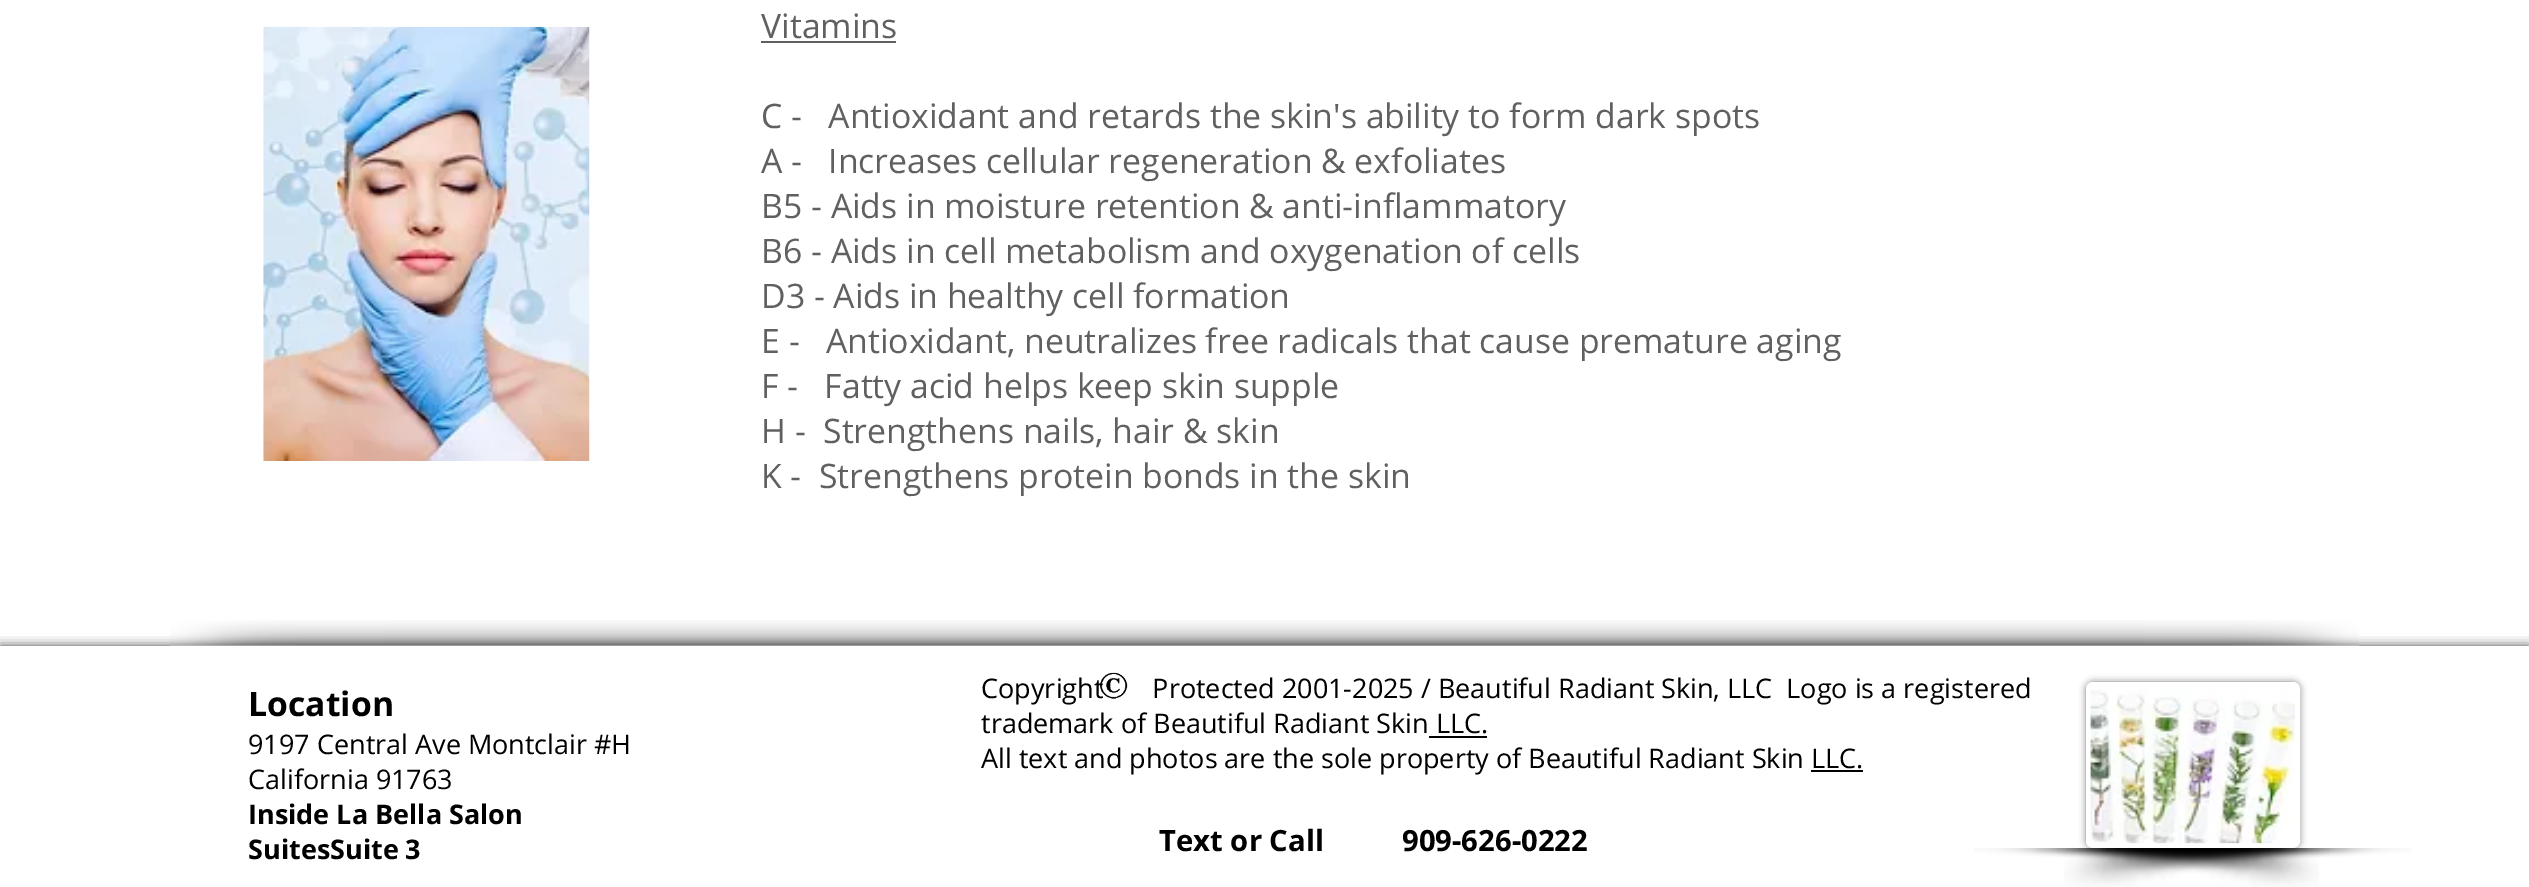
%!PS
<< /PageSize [2529 887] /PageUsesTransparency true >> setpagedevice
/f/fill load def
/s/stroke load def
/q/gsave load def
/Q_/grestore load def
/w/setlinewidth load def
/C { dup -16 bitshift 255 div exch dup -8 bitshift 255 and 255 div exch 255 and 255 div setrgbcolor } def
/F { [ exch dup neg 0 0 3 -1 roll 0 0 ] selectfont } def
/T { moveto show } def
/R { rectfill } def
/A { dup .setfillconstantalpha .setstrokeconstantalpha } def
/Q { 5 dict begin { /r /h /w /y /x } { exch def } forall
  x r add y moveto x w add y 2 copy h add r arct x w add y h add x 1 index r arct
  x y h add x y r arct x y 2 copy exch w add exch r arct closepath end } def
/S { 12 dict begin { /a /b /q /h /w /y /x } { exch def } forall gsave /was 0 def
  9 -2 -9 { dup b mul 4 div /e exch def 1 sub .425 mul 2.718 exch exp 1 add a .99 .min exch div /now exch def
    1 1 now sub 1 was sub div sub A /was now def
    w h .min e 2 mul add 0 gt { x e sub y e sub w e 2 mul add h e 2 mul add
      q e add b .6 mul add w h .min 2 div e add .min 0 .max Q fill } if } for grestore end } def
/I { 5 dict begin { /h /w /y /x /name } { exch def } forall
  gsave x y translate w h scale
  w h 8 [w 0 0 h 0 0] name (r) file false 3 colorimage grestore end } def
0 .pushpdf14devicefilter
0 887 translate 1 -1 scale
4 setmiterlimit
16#FFFFFF C
0 0 2529 887 R
(1.rgb) 263 26 327 435 I
/OpenSans-Regular 33.75 F
16#606060 C
(Vitamins) 761 38 T
761 41 135 2 R
(C -   Antioxidant and retards the skin's ability to form dark spots) 761 128 T
(A -   Increases cellular regeneration & exfoliates) 761 173 T
(B5 - Aids in moisture retention & anti-inflammatory) 761 218 T
(B6 - Aids in cell metabolism and oxygenation of cells) 761 263 T
(D3 - Aids in healthy cell formation) 761 308 T
(E -   Antioxidant, neutralizes free radicals that cause premature aging) 761 353 T
(F -   Fatty acid helps keep skin supple) 761 398 T
(H -  Strengthens nails, hair & skin) 761 443 T
(K -  Strengthens protein bonds in the skin) 761 488 T
q
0 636 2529 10 rectclip
16#000000 C
0 646 2529 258 0 5.5 .7 S
Q_
(2.rgb) 170 620 217 26 I
(3.rgb) 387 620 1755 26 I
(4.rgb) 2142 620 217 26 I
(5.rgb) 1100 672 28 27 I
16#000000 C
2086 682 214 166 7 3.5 .5 S
16#FFFFFF C
2088.5 684.5 209 161 4.5 Q q f Q_
5 w
s
(6.rgb) 2090 689 205 155 I
(8.rgb) 2067 848 345 39 I
(7.rgb) 1974 848 345 39 I
/OpenSans-Bold 33.75 F
16#000000 C
(Location) 248 716 T
/OpenSans-Regular 27 F
(Copyright       Protected 2001-2025 / Beautiful Radiant Skin, LLC  Logo is a registered) 981 698 T
(trademark of Beautiful Radiant Skin LLC.) 981 733 T
1429 736 58 2 R
(All text and photos are the sole property of Beautiful Radiant Skin LLC.) 981 768 T
1811 770 52 2 R
(9197 Central Ave Montclair #H) 248 754 T
(California 91763) 248 789 T
/OpenSans-Bold 27 F
(Inside La Bella Salon) 248 824 T
(SuitesSuite 3) 248 859 T
/OpenSans-Bold 29.25 F
(Text or Call) 1159 851 T
(909-626-0222) 1402 851 T
.poppdf14devicefilter showpage
